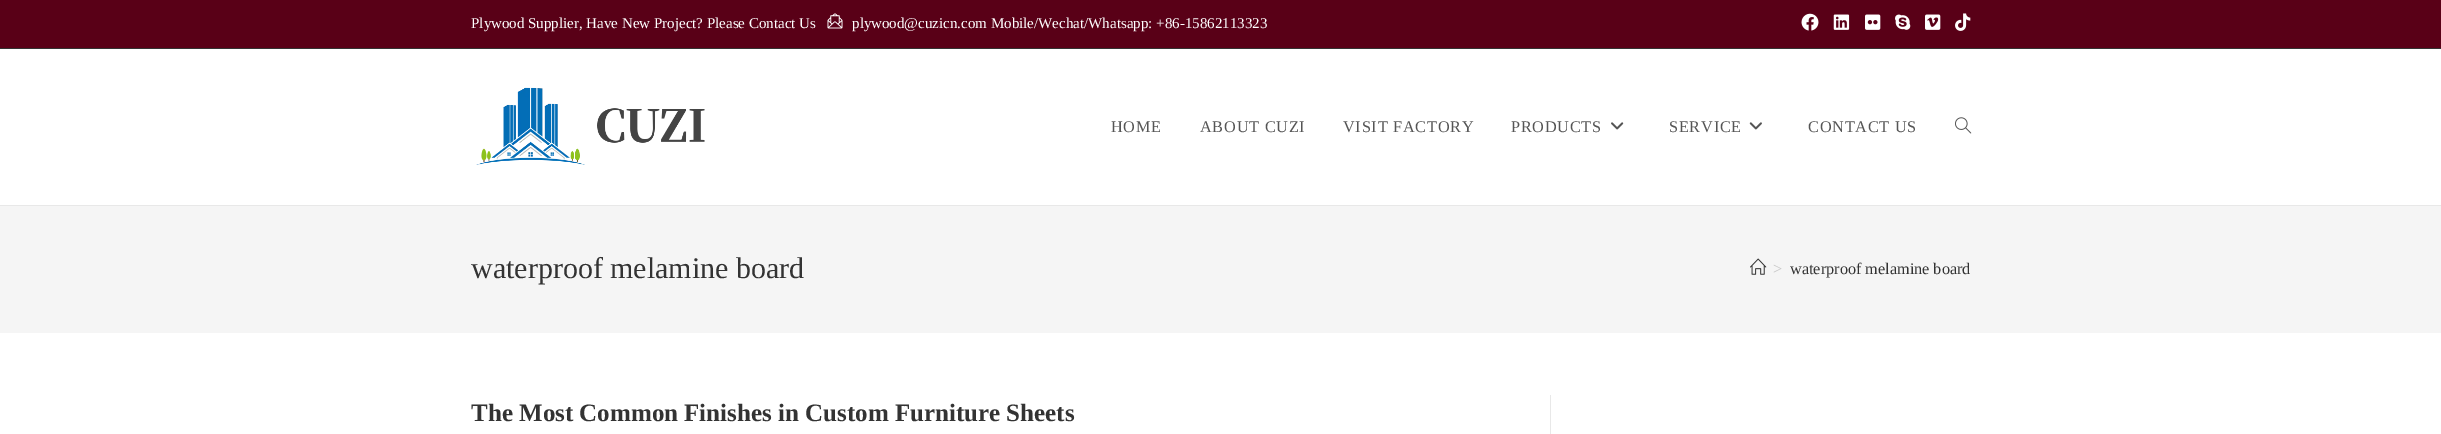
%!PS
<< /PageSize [2441 434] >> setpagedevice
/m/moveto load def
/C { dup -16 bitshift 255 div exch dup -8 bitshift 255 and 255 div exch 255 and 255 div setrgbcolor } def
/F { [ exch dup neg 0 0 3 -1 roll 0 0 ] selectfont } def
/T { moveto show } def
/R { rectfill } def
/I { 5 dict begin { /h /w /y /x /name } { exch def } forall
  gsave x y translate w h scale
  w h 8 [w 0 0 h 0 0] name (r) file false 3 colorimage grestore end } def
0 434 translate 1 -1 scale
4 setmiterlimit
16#FFFFFF C
0 0 2441 434 R
16#590017 C
0 0 2441 48 R
16#333333 C
0 48 2441 1 R
/LiberationSerif-Regular 15 F
16#FFFFFF C
(Plywood Supplier, Have New Project? Please Contact Us) 471 28 T
(1.rgb) 827 13 16 16 I
(plywood@cuzicn.com Mobile/Wechat/Whatsapp: +86-15862113323) 852 28 T
(2.rgb) 1801 13 18 18 I
(3.rgb) 1833 14 17 16 I
(4.rgb) 1865 14 16 16 I
(5.rgb) 1895 14 16 16 I
(6.rgb) 1925 14 16 16 I
(7.rgb) 1955 13 16 18 I
16#E8E8E8 C
0 205 2441 1 R
(8.rgb) 476 87 229 78 I
/LiberationSerif-Regular 16.25 F
16#555555 C
1111 132 m .75 0 (HOME) ashow
1200 132 m .75 0 (ABOUT CUZI) ashow
1343 132 m .75 0 (VISIT FACTORY) ashow
1511 132 m .75 0 (PRODUCTS) ashow
(9.rgb) 1611 122 13 8 I
1669 132 m .75 0 (SERVICE) ashow
(10.rgb) 1749 122 13 8 I
1808 132 m .75 0 (CONTACT US) ashow
(11.rgb) 1955 117 17 17 I
16#F5F5F5 C
0 206 2441 127 R
/LiberationSerif-Regular 30 F
16#333333 C
(waterproof melamine board) 471 278 T
(12.rgb) 1750 258 17 17 I
/LiberationSerif-Regular 16.25 F
16#C6C6C6 C
(>) 1773 274 T
16#333333 C
(waterproof melamine board) 1790 274 T
16#E8E8E8 C
1550 395 1 39 R
/LiberationSerif-Bold 25 F
16#333333 C
(The Most Common Finishes in Custom Furniture Sheets) 471 421 T
showpage
